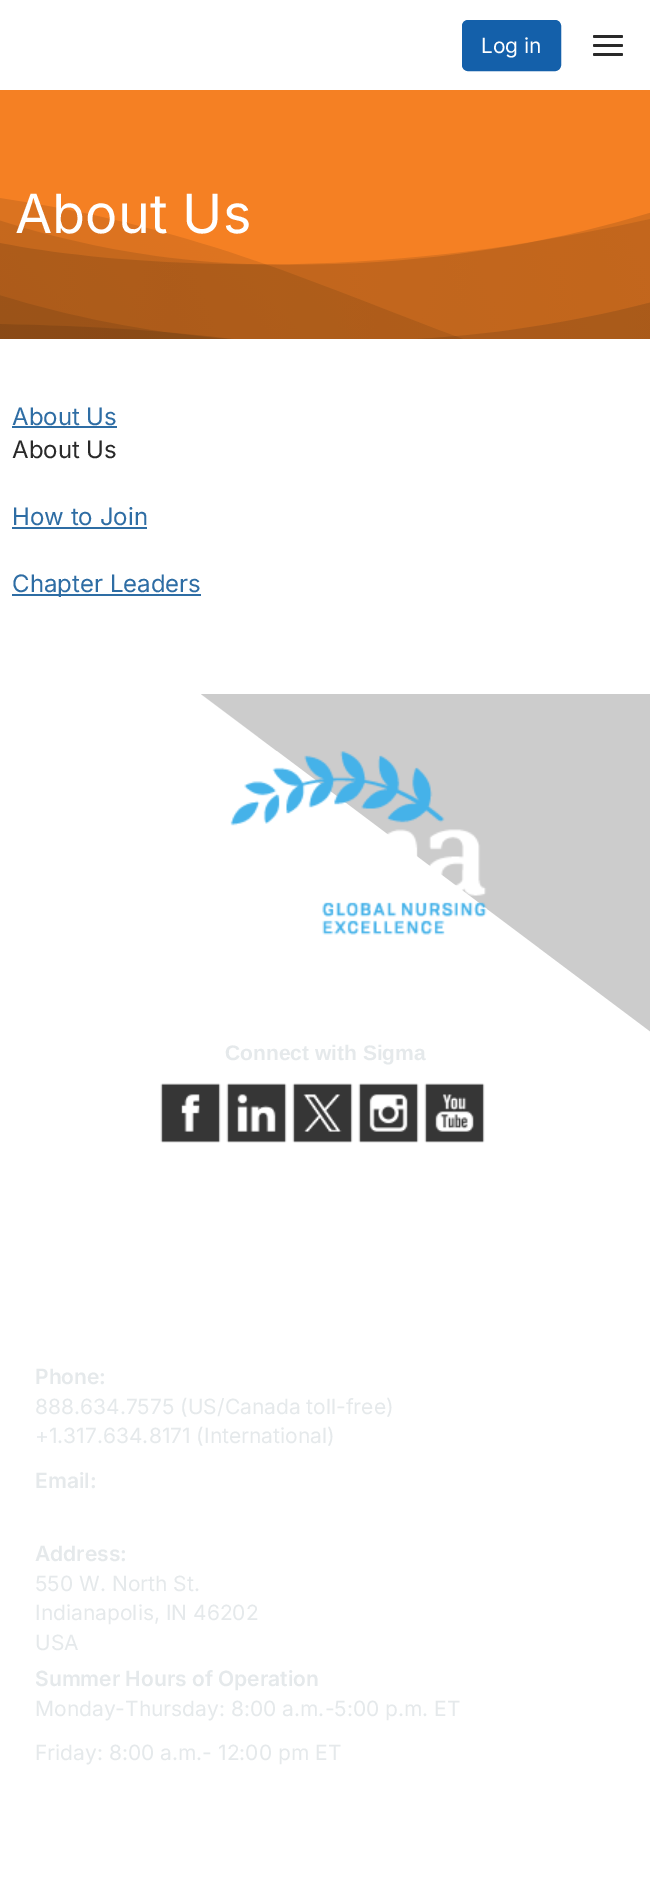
%!PS
<< /PageSize [650 1892] >> setpagedevice
/m/moveto load def
/l/rlineto load def
/z/closepath load def
/f/fill load def
/s/stroke load def
/q/gsave load def
/Q_/grestore load def
/w/setlinewidth load def
/C { dup -16 bitshift 255 div exch dup -8 bitshift 255 and 255 div exch 255 and 255 div setrgbcolor } def
/F { [ exch dup neg 0 0 3 -1 roll 0 0 ] selectfont } def
/T { moveto show } def
/R { rectfill } def
/Q { 5 dict begin { /r /h /w /y /x } { exch def } forall
  x r add y moveto x w add y 2 copy h add r arct x w add y h add x 1 index r arct
  x y h add x y r arct x y 2 copy exch w add exch r arct closepath end } def
/I { 5 dict begin { /h /w /y /x /name } { exch def } forall
  gsave x y translate w h scale
  w h 8 [w 0 0 h 0 0] name (r) file false 3 colorimage grestore end } def
0 1892 translate 1 -1 scale
4 setmiterlimit
16#FFFFFF C
0 0 650 1892 R
16#1460AA C
463 21 97 49 5 Q q f Q_
2 w
s
/Inter-Regular 21 F
16#FFFFFF C
(Log in) 481 53 T
16#292929 C
593 35 30 3 1.5 Q f
593 44 30 3 1.5 Q f
593 53 30 3 1.5 Q f
(1.rgb) 0 90 650 249 I
/Inter-Regular 54 F
16#FFFFFF C
(About Us) 15 233 T
/Inter-Regular 24 F
16#2E6DA4 C
(About Us) 12 425 T
12 426 105 2 R
16#292929 C
(About Us) 12 458 T
16#2E6DA4 C
(How to Join) 12 525 T
12 527 135 2 R
12 594 189 2 R
(Chapter Leaders) 12 592 T
16#CCCCCC C
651 694 m 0 338 l -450 -338 l z f
(2.rgb) 230 751 257 184 I
/LiberationSans-Bold 21 F
16#E5E9EB C
(Connect with Sigma) 225 1060 T
(3.rgb) 160 1083 61 60 I
(4.rgb) 226 1083 61 60 I
(5.rgb) 292 1083 61 60 I
(6.rgb) 358 1083 61 60 I
(7.rgb) 424 1083 61 60 I
/Inter-SemiBold 21 F
(Phone:) 35 1384 T
/Inter-Regular 21 F
(888.634.7575 \(US/Canada toll-free\)) 35 1414 T
(+1.317.634.8171 \(International\)) 35 1443 T
/Inter-SemiBold 21 F
(Email:) 35 1488 T
(Address:) 35 1561 T
/Inter-Regular 21 F
(550 W. North St.) 35 1591 T
(Indianapolis, IN 46202) 35 1620 T
(USA) 35 1650 T
/Inter-SemiBold 21 F
(Summer Hours of Operation) 35 1686 T
/Inter-Regular 21 F
(Monday-Thursday: 8:00 a.m.-5:00 p.m. ET) 35 1716 T
(Friday: 8:00 a.m.- 12:00 pm ET) 35 1760 T
showpage
